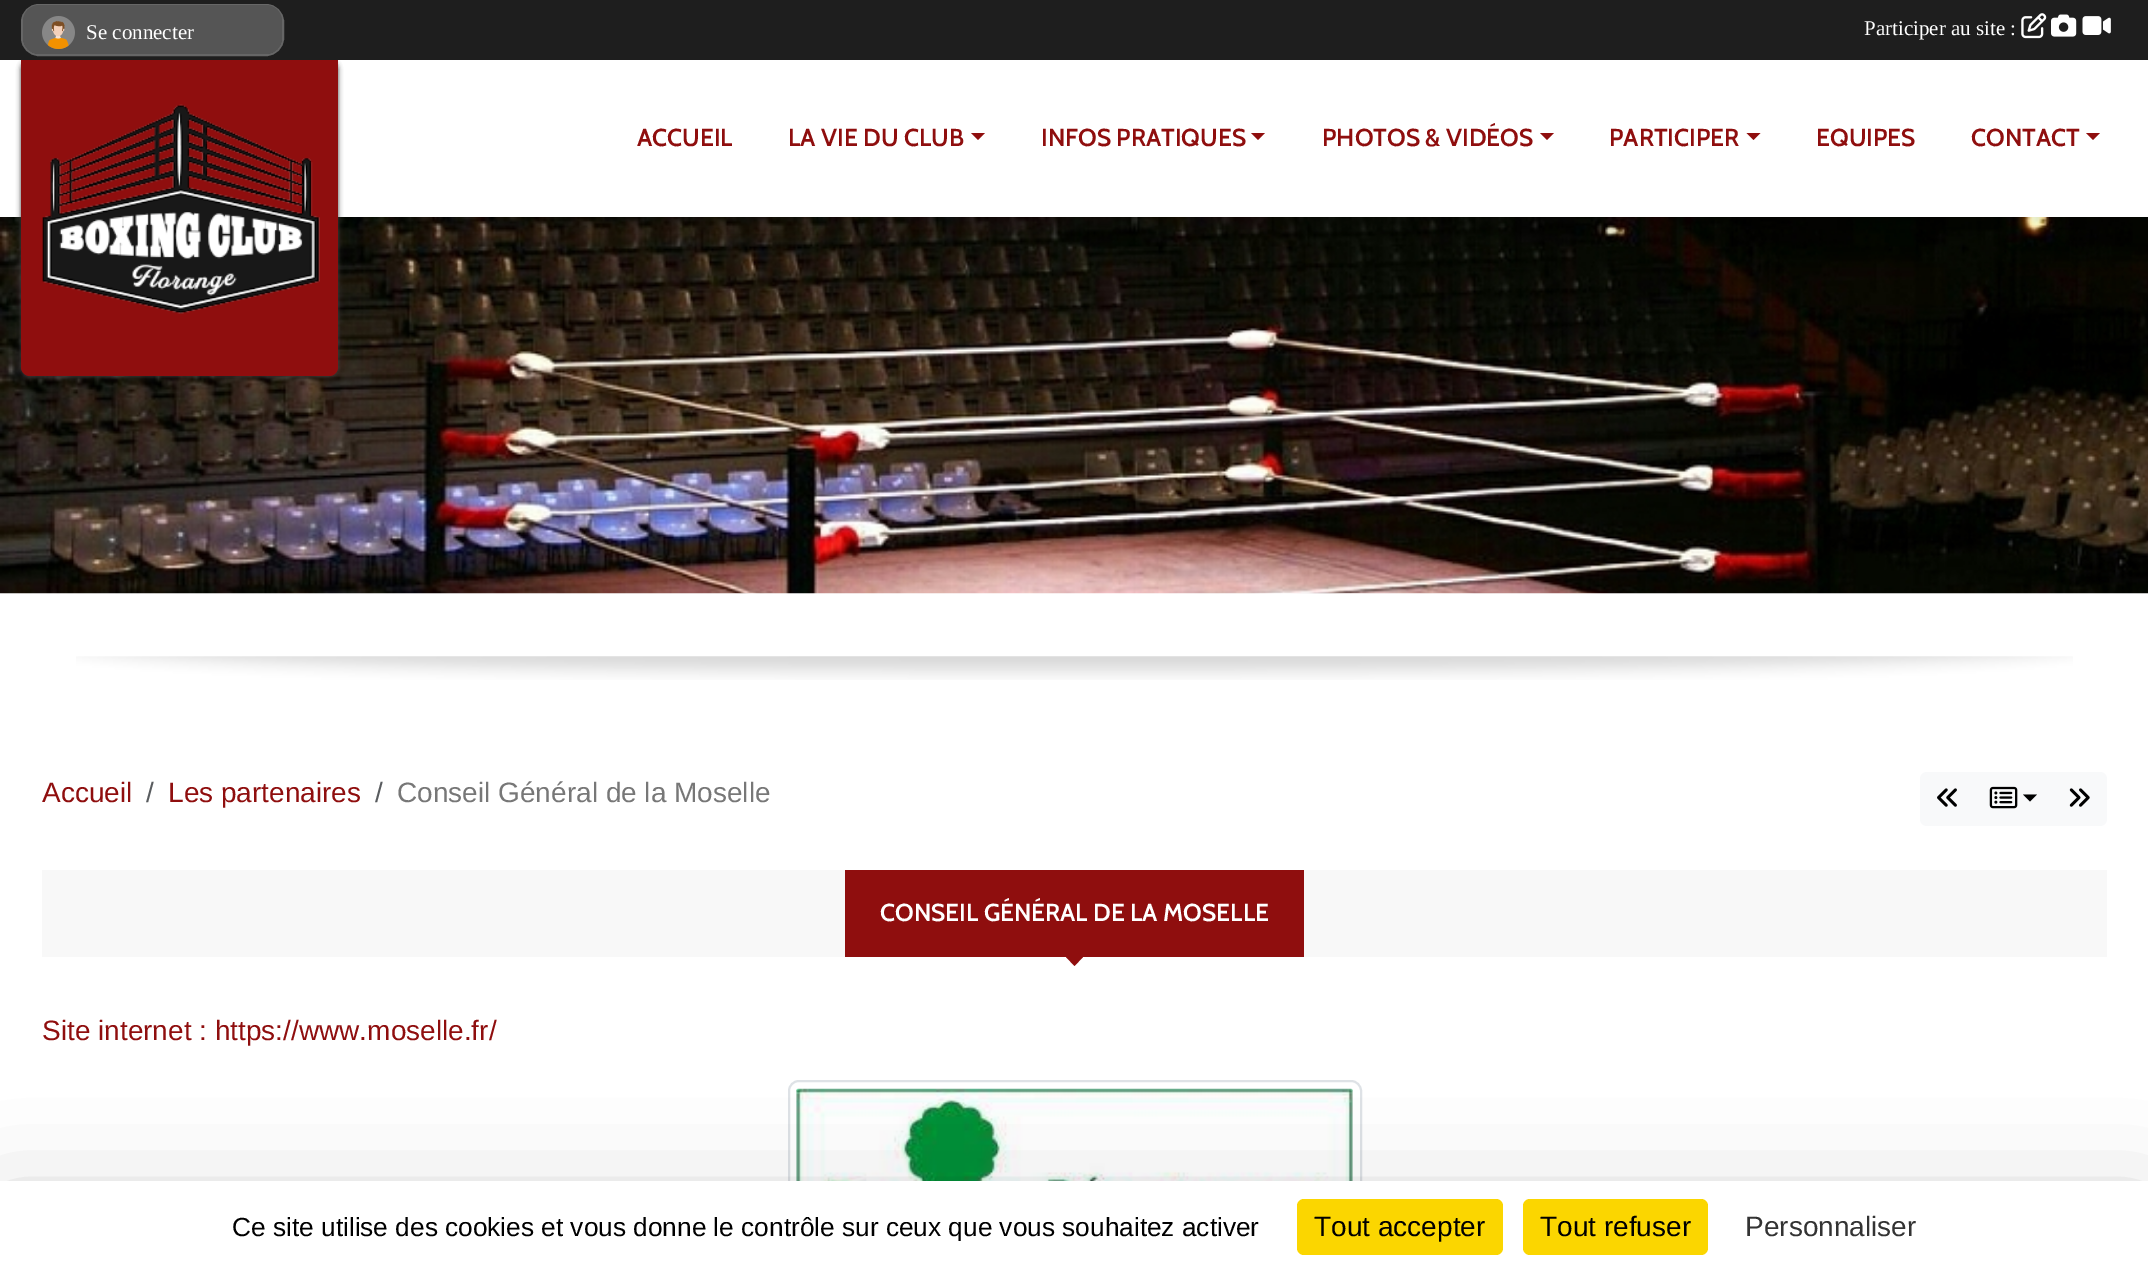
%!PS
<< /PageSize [2148 1271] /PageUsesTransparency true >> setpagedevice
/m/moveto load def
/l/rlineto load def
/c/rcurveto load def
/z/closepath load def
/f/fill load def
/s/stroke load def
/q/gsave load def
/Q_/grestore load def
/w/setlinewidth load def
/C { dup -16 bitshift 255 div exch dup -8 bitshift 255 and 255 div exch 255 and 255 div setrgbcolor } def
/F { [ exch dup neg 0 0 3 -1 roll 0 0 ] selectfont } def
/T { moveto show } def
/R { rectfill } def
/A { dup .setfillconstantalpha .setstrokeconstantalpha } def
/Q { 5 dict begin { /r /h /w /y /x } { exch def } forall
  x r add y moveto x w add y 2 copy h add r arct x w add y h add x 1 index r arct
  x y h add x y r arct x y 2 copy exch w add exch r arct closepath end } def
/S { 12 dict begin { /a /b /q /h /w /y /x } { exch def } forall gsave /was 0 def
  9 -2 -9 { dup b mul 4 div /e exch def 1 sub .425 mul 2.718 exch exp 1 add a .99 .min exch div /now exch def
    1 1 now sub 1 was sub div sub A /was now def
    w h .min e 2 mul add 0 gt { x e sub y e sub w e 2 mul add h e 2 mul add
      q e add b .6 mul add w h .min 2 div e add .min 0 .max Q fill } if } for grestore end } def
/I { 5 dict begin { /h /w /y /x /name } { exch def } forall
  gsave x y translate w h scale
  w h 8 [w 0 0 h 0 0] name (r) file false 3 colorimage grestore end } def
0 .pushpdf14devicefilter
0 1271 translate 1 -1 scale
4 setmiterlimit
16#FFFFFF C
0 0 2148 1271 R
(7.rgb) 0 217 2148 377 I
16#444444 C
21 60 317 316 9 2.5 1 S
16#1E1E1E C
0 0 2148 60 R
16#666666 C
2 w
22 5 261 50 17 Q s
16#555555 C
23 5 259 49 16 Q f
(1.rgb) 42 16 33 33 I
/LiberationSerif-Regular 21 F
16#FFFFFF C
(Se connecter) 86 39 T
(Participer au site :) 1864 35 T
(2.rgb) 2021 13 26 26 I
(3.rgb) 2051 14 26 23 I
(4.rgb) 2082 16 29 19 I
16#8F0E0E C
21 60 m 317 0 l 0 307 l 0 5 -4 9 -9 9 c -299 0 l -5 0 -9 -4 -9 -9 c z f
(5.rgb) 42 104 278 210 I
/Cabin-SemiBold 24.5 F
(ACCUEIL) 637 146 T
(LA VIE DU CLUB) 788 146 T
971 133 m 14 0 l -7 7 l z f
(INFOS PRATIQUES) 1041 146 T
1251 133 m 14 0 l -7 7 l z f
(PHOTOS & VIDÉOS) 1322 146 T
1540 133 m 14 0 l -7 7 l z f
(PARTICIPER) 1609 146 T
1746.5 133 m 14 0 l -7 7 l z f
(EQUIPES) 1816 146 T
(CONTACT) 1971 146 T
2086 133 m 14 0 l -7 7 l z f
(6.rgb) 386 217 1662 18 I
(8.rgb) 76 656 1997 24 I
/LiberationSans-Regular 28 F
(Accueil) 42 802 T
16#595C5F C
(/) 146 802 T
16#8F0E0E C
(Les partenaires) 168 802 T
16#595C5F C
(/) 375 802 T
16#777777 C
(Conseil Général de la Moselle) 397 802 T
16#F8F9FA C
1927 772 m 49 0 l 0 54 l -49 0 l -4 0 -7 -3 -7 -7 c 0 -40 l 0 -4 3 -7 7 -7 c z f
(9.rgb) 1937 788 20 19 I
1976 772 75 54 R
(10.rgb) 1989 786 29 23 I
16#000000 C
2023 794.5 m 14 0 l -7 7 l z f
16#F8F9FA C
2051 772 m 49 0 l 4 0 7 3 7 7 c 0 40 l 0 4 -3 7 -7 7 c -49 0 l z f
(11.rgb) 2069 788 21 19 I
16#F8F8F8 C
42 870 2065 87 R
16#8F0E0E C
845 870 459 87 R
/Cabin-SemiBold 24.5 F
16#FFFFFF C
(CONSEIL GÉNÉRAL DE LA MOSELLE) 880 921 T
16#8F0E0E C
1066 957 m 17 0 l -8.5 9 l z f
/LiberationSans-Regular 28 F
(Site internet : https://www.moselle.fr/) 42 1040 T
16#DEE2E6 C
789 1081 572 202 10 Q s
(12.rgb) 796 1088 557 93 I
16#000000 C
0 1216 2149 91 0 52.5 .25 S
16#FFFFFF C
0 1181 2148 90 R
q
215 1211 1063 30 rectclip
/LiberationSans-Regular 26.25 F
16#000000 C
(Ce site utilise des cookies et vous donne le contrôle sur ceux que vous souhaitez activer) 232 1236 T
Q_
16#FBD600 C
1297 1199 206 56 7 Q f
16#000000 C
(Tout accepter) 1314 1236 T
16#FBD600 C
1523 1199 185 56 7 Q f
16#000000 C
(Tout refuser) 1540 1236 T
16#333333 C
(Personnaliser) 1745 1236 T
.poppdf14devicefilter showpage
